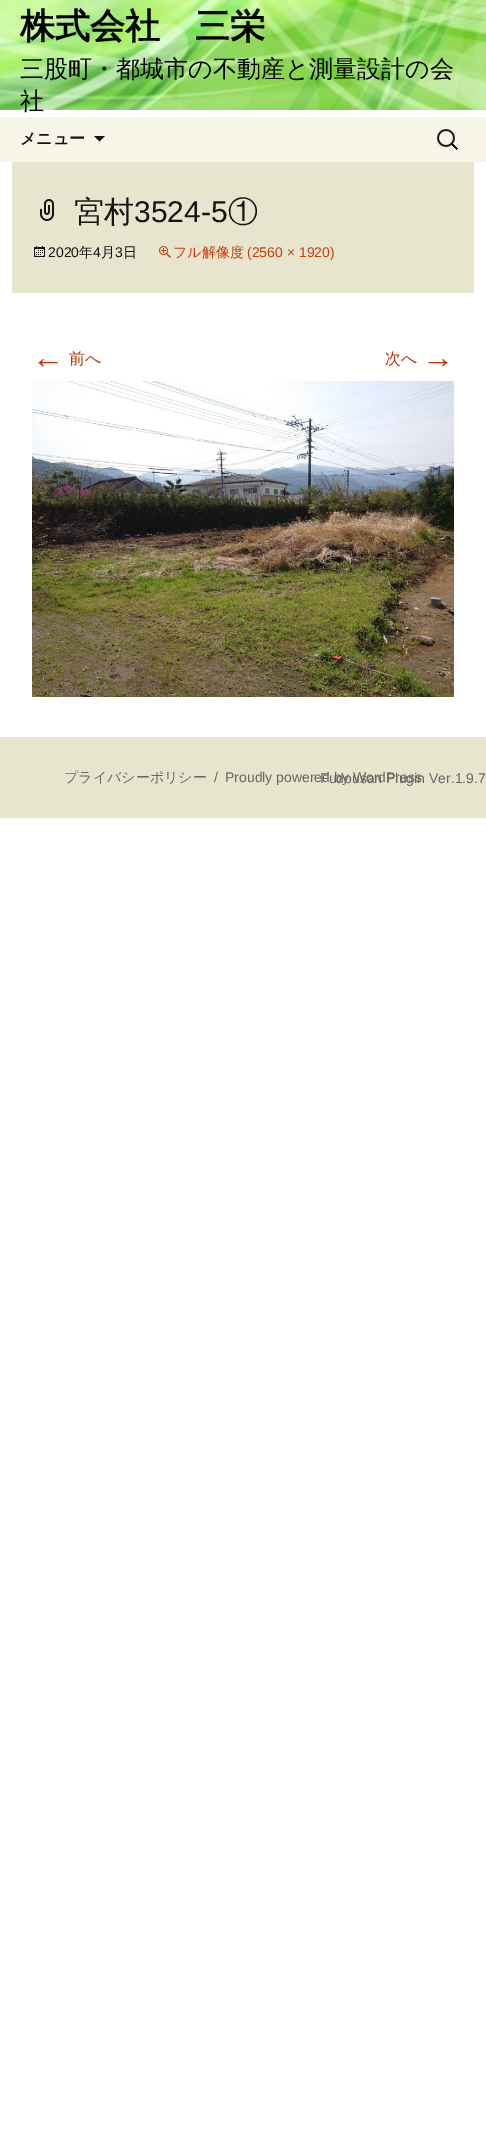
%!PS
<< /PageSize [486 2135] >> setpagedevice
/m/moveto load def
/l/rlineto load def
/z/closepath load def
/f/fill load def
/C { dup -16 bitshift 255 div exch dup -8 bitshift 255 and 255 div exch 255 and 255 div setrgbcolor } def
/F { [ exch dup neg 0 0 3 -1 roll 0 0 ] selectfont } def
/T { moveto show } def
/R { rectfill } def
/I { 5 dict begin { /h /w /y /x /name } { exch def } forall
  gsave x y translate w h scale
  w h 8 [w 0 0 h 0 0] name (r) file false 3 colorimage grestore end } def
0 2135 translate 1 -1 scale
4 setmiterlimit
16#FFFFFF C
0 0 486 2135 R
(1.rgb) 0 0 486 110 I
/WenQuanYiZenHei-Bold 35 F
16#000000 C
(株式会社　三栄) 20 38 T
/WenQuanYiZenHei-Medium 24 F
(三股町・都城市の不動産と測量設計の会) 20 77 T
(社) 20 109 T
16#F7F5E7 C
0 117 486 45 R
/WenQuanYiZenHei-Bold 16 F
16#141412 C
(メニュー) 20 144 T
94 136 m 5.5 5.5 l 5.5 -5.5 l z f
(2.rgb) 437 129 21 21 I
16#E8E5CE C
12 162 462 131 R
(3.rgb) 40 199 14 22 I
/WenQuanYiZenHei-Medium 30 F
16#141412 C
(宮村) 74 222 T
/LiberationSans-Regular 30 F
(3524-5) 134 222 T
/WenQuanYiZenHei-Medium 30 F
(①) 228 222 T
(4.rgb) 34 246 11 11 I
/LiberationSans-Regular 14 F
(2020) 48 257 T
/WenQuanYiZenHei-Medium 14 F
(年) 79 257 T
/LiberationSans-Regular 14 F
(4) 93 257 T
/WenQuanYiZenHei-Medium 14 F
(月) 101 257 T
/LiberationSans-Regular 14 F
(3) 115 257 T
/WenQuanYiZenHei-Medium 14 F
(日) 123 257 T
(5.rgb) 159 246 12 12 I
16#CA3C08 C
(フル解像度) 173 257 T
/LiberationSans-Regular 14 F
(\(2560 × 1920\)) 247 257 T
/LiberationSans-Regular 32 F
16#BC360A C
(←) 32 368 T
/WenQuanYiZenHei-Medium 16 F
(前へ) 69 364 T
(次へ) 385 364 T
/LiberationSans-Regular 32 F
(→) 422 368 T
(6.rgb) 32 381 422 316 I
16#E8E5CE C
0 737 486 81 R
/WenQuanYiZenHei-Medium 14 F
16#686758 C
(プライバシーポリシー) 64 782 T
/LiberationSans-Regular 14 F
(/) 214 782 T
(Proudly powered by WordPress) 225 782 T
16#666666 C
(Fudousan Plugin Ver.1.9.7) 320 783 T
showpage
